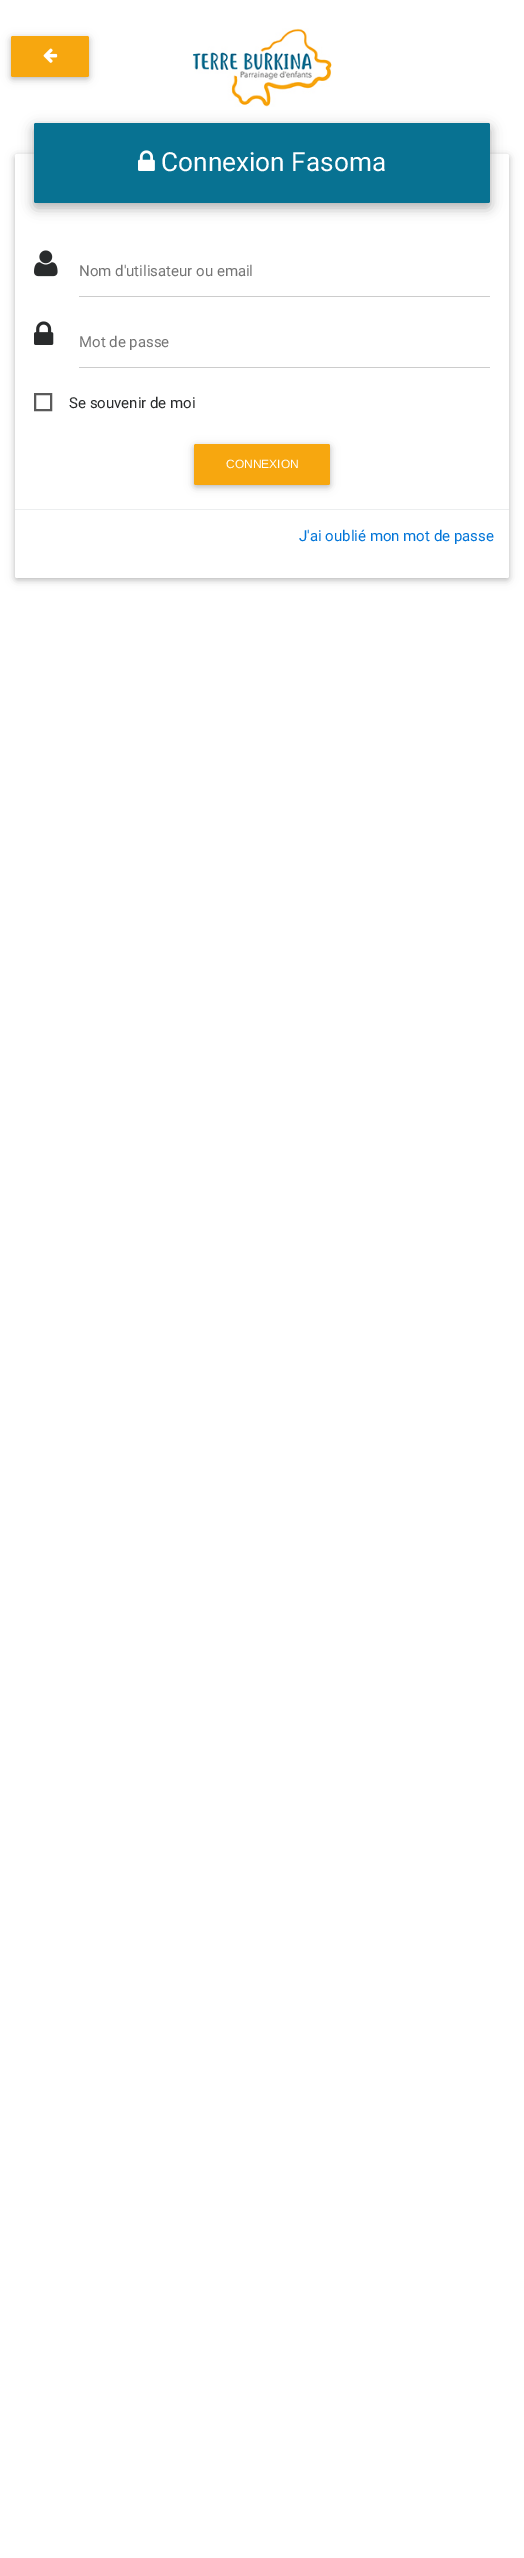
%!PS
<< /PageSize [524 2558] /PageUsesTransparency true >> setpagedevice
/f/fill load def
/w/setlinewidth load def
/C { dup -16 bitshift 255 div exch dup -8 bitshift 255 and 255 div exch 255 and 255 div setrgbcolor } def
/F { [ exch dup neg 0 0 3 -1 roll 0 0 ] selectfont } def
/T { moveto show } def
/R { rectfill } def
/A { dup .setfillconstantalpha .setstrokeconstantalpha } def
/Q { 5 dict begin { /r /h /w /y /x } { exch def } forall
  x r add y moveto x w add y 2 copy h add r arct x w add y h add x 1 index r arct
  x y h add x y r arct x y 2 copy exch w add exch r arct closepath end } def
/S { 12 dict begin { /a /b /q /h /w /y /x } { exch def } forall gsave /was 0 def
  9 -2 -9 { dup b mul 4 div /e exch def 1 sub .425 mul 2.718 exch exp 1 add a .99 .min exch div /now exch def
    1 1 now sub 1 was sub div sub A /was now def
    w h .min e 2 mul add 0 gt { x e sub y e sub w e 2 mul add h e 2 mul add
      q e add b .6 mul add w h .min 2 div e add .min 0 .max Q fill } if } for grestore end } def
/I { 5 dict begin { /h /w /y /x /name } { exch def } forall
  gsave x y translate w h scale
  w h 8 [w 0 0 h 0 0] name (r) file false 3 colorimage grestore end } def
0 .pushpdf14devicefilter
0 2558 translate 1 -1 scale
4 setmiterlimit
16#FFFFFF C
0 0 524 2558 R
16#000000 C
11 38 78 41 2 5 .12 S
11 38 78 41 2 2.5 .16 S
16#F7A70F C
11 36 78 41 2 Q f
(1.rgb) 43 48 15 15 I
(2.rgb) 192 28 140 79 I
16#000000 C
15 156 494 424 2 5 .12 S
15 156 494 424 2 2.5 .16 S
16#FFFFFF C
15 154 494 424 2 Q f
16#000000 C
34 127 456 80 2 7.5 .15 S
34 128 456 80 2 5.5 .18 S
16#087292 C
34 123 456 80 2 Q f
(3.rgb) 138 150 17 21 I
/Roboto-Regular 26.25 F
16#FFFFFF C
(Connexion Fasoma) 161 171 T
(4.rgb) 34 250 24 27 I
/Roboto-Regular 15 F
16#757575 C
(Nom d'utilisateur ou email) 79 276 T
16#CCCCCC C
79 296 411 1 R
(5.rgb) 34 321 20 24 I
16#757575 C
(Mot de passe) 79 347 T
16#CCCCCC C
79 367 411 1 R
16#5A5A5A C
2 w
35 394 16 16 rectstroke
16#292B2C C
(Se souvenir de moi) 69 408 T
16#000000 C
194 446 136 41 2 5 .12 S
194 446 136 41 2 2.5 .16 S
16#F7A70F C
194 444 136 41 2 Q f
/LiberationSans-Regular 12 F
16#FFFFFF C
(CONNEXION) 226 468 T
16#ECEEEF C
15 509 494 1 R
/Roboto-Regular 15 F
16#0275D8 C
(J'ai oublié mon mot de passe) 299 541 T
.poppdf14devicefilter showpage
